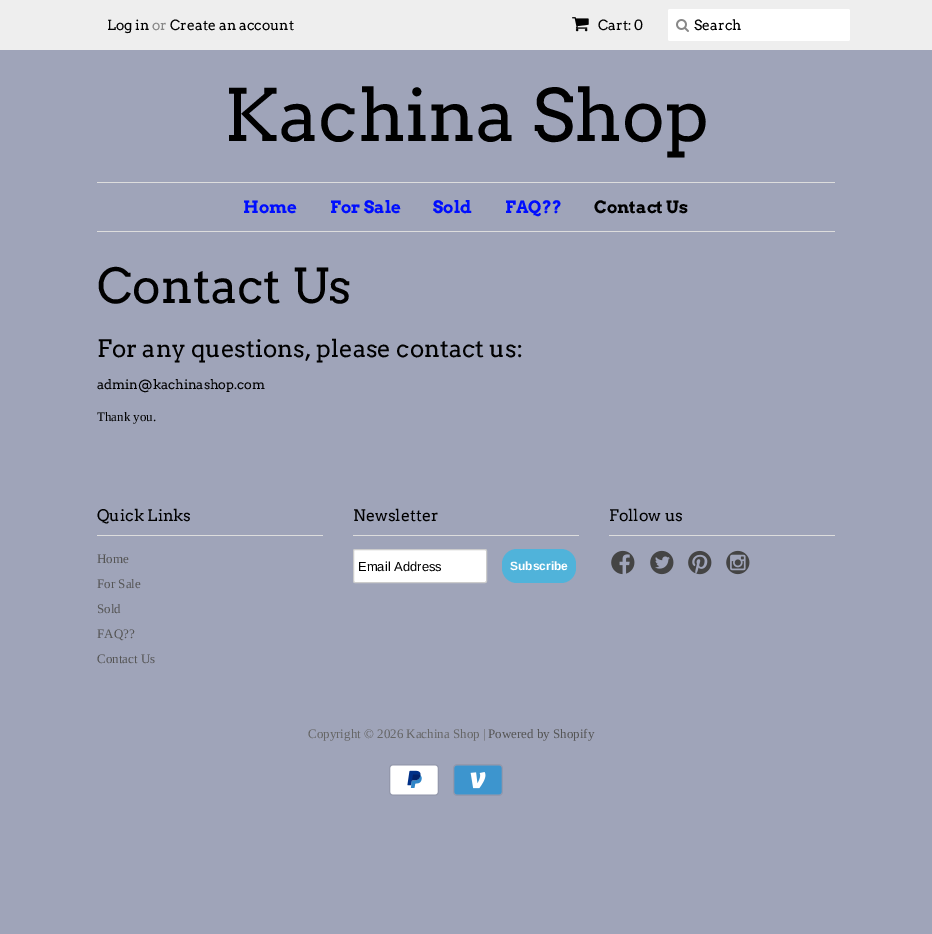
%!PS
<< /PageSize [932 934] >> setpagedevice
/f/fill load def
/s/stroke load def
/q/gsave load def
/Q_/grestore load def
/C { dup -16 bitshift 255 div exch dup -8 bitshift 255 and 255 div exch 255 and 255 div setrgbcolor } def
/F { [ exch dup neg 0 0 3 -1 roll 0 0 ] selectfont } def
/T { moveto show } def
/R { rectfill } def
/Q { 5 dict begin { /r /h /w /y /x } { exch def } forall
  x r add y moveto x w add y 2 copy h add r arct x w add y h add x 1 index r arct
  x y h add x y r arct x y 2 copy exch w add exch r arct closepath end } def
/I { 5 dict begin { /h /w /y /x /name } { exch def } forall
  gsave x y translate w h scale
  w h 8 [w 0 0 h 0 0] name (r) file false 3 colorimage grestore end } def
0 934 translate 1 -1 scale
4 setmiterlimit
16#9FA4B9 C
0 0 932 934 R
16#EEEEEE C
0 0 932 50 R
/Arvo-Regular 14 F
16#000000 C
(Log in) 107 30 T
16#888888 C
(or) 152 30 T
16#000000 C
(Create an account) 170 30 T
(1.rgb) 572 17 17 15 I
(Cart: 0) 598 30 T
16#FFFFFF C
668 9 182 32 2 Q f
(2.rgb) 676 19 13 13 I
16#000000 C
(Search) 694 30 T
/Arvo-Regular 72 F
(Kachina Shop) 224 141 T
16#DDDDDD C
97 182 738 1 R
97 231 738 1 R
/Arvo-Bold 17 F
16#000EFF C
(Home) 243 213 T
(For Sale) 330 213 T
(Sold) 433 213 T
(FAQ??) 505 213 T
16#000000 C
(Contact Us) 594 213 T
/Arvo-Regular 48 F
(Contact Us) 97 303 T
/Arvo-Regular 24 F
(For any questions, please contact us:) 97 357 T
/Arvo-Regular 13 F
(admin@kachinashop.com) 97 389 T
/LiberationSerif-Regular 13 F
(Thank you.) 97 421 T
16#DDDDDD C
97 535 226 1 R
/Arvo-Regular 16 F
16#000000 C
(Quick Links) 97 521 T
/LiberationSerif-Regular 13 F
16#555555 C
(Home) 97 563 T
(For Sale) 97 588 T
(Sold) 97 613 T
(FAQ??) 97 638 T
(Contact Us) 97 663 T
16#DDDDDD C
353 535 226 1 R
/Arvo-Regular 16 F
16#000000 C
(Newsletter) 353 521 T
16#FFFFFF C
353.5 549.5 133 33 1.5 Q q f Q_
16#CCCCCC C
s
/LiberationSans-Regular 13 F
16#000000 C
(Email Address) 358 571 T
16#50B3DA C
502 549 74 34 15 Q f
/LiberationSans-Bold 12 F
16#FFFFFF C
(Subscribe) 510 570 T
16#DDDDDD C
609 535 226 1 R
/Arvo-Regular 16 F
16#000000 C
(Follow us) 609 521 T
(3.rgb) 611 550 24 25 I
(4.rgb) 650 550 24 25 I
(5.rgb) 688 550 24 25 I
(6.rgb) 726 550 24 25 I
/LiberationSerif-Regular 13 F
16#666666 C
(Copyright © 2026 Kachina Shop |) 308 738 T
16#555555 C
(Powered by Shopify) 488 738 T
(7.rgb) 389 764 50 32 I
(8.rgb) 453 764 50 32 I
showpage
